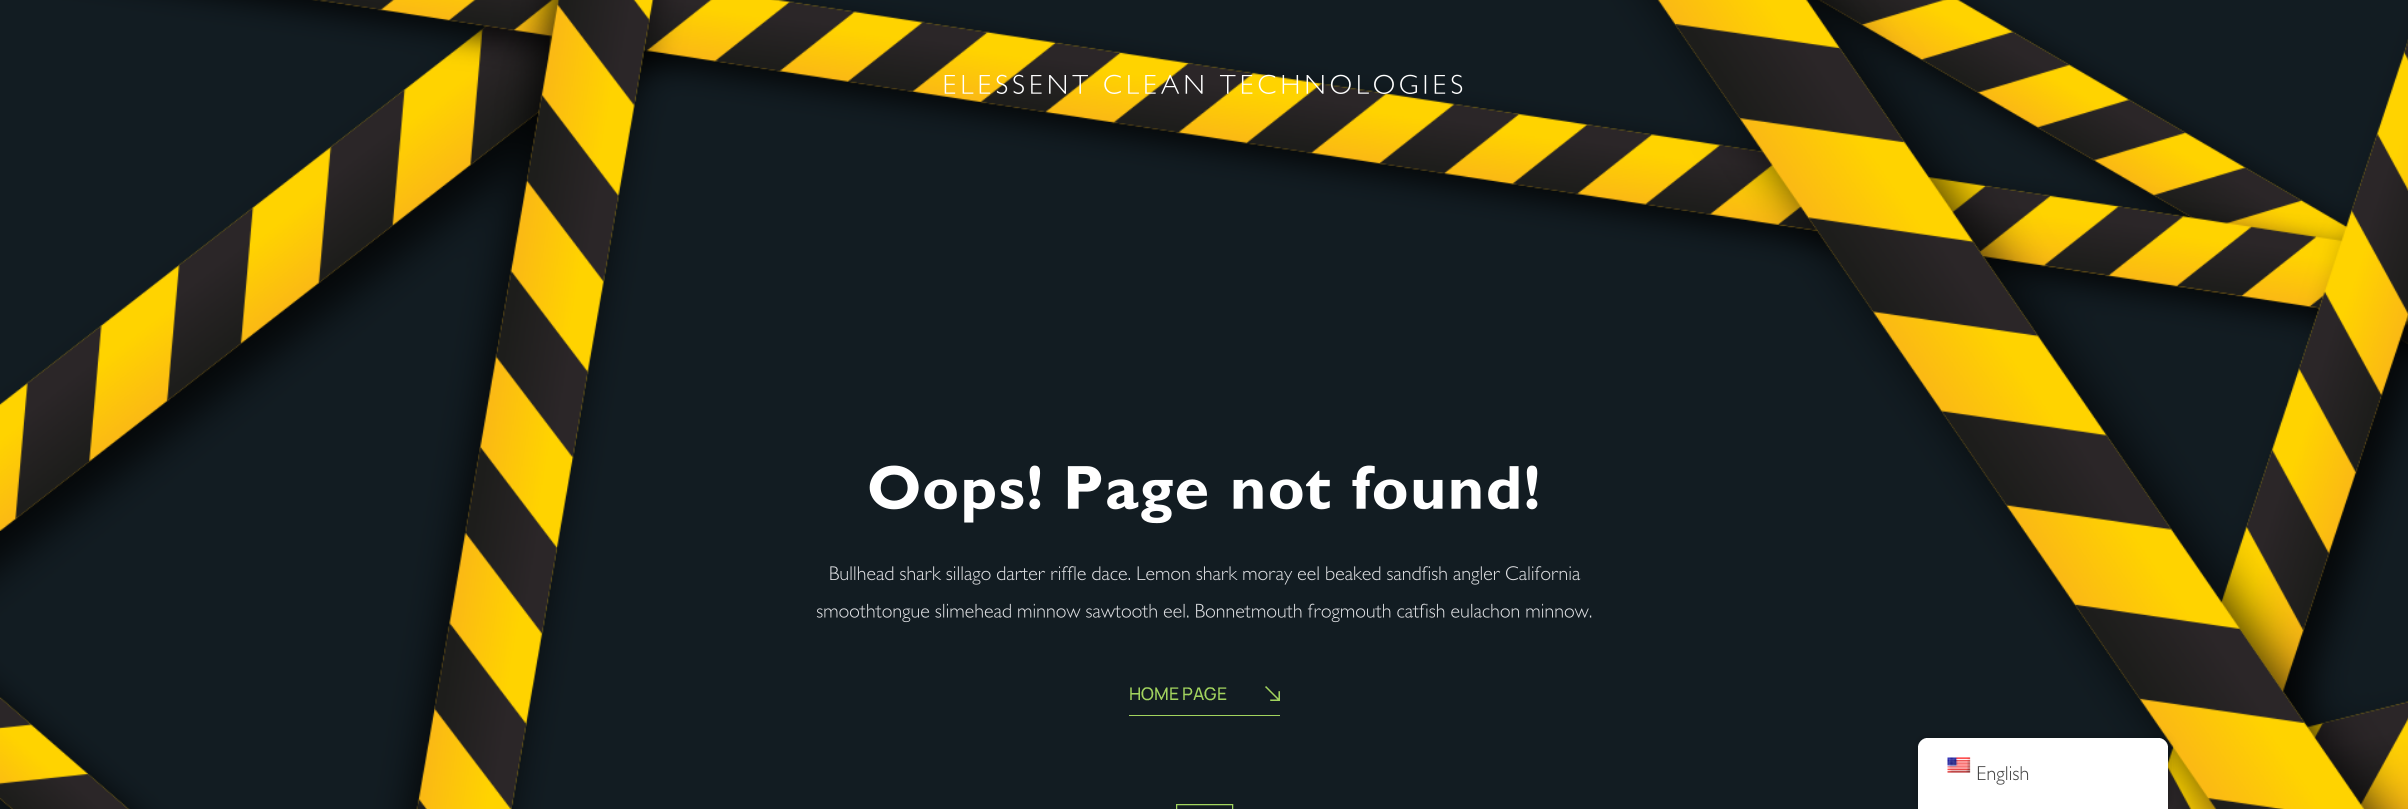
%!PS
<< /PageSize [2408 809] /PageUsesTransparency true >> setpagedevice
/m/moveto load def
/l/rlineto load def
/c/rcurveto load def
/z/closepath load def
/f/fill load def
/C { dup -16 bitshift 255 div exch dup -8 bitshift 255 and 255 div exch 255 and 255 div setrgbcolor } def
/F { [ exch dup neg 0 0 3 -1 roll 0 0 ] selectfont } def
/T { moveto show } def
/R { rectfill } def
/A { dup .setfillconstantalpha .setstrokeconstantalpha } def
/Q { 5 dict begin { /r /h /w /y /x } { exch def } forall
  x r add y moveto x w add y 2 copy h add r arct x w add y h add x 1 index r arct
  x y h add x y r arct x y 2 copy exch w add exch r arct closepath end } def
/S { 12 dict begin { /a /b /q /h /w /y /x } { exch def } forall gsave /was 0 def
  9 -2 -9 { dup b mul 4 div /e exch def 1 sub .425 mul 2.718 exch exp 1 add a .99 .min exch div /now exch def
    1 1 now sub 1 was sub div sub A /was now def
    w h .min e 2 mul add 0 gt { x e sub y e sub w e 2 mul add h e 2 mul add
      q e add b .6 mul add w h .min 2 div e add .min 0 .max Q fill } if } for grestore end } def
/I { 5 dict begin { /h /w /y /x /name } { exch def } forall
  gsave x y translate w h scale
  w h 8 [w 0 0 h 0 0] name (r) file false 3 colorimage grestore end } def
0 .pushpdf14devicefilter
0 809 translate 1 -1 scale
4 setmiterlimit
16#121C22 C
0 0 2408 809 R
(1.rgb) 0 0 2408 809 I
(2.rgb) 944 74 519 20 I
(3.rgb) 869 465 669 59 I
(4.rgb) 830 566 751 19 I
(5.rgb) 816 603 776 20 I
16#A2D45E C
1129 715 151 1 R
/Manrope-Medium 17.5 F
(HOME PAGE) 1129 700 T
(6.rgb) 1265 686 15 15 I
1176.5 804.5 56 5 rectstroke
16#000000 C
1918 738 250 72 10 5 .25 S
16#FFFFFF C
1928 738 m 230 0 l 5.5 0 10 4.5 10 10 c 0 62 l -250 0 l 0 -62 l 0 -5.5 4.5 -10 10 -10 c z f
(7.rgb) 1947 757 24 16 I
(8.rgb) 1977 766 52 19 I
.poppdf14devicefilter showpage
